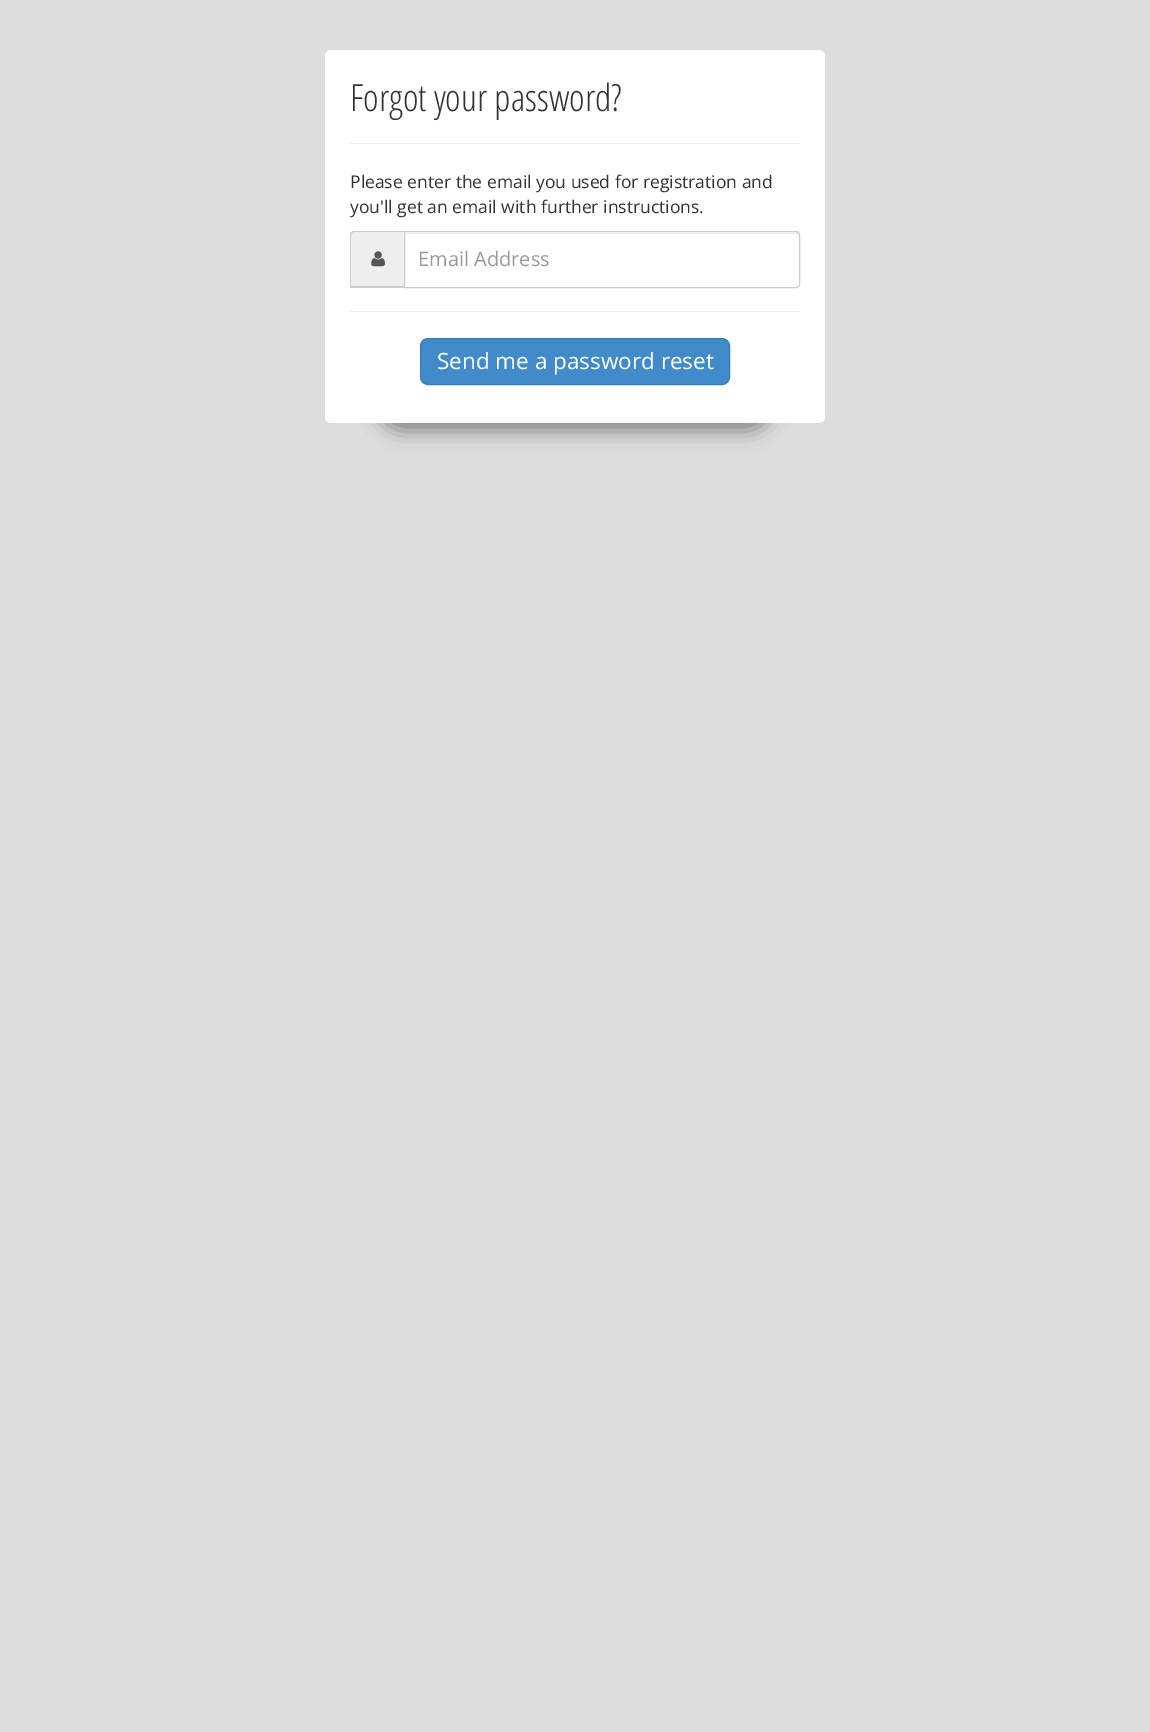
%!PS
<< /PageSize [1150 1732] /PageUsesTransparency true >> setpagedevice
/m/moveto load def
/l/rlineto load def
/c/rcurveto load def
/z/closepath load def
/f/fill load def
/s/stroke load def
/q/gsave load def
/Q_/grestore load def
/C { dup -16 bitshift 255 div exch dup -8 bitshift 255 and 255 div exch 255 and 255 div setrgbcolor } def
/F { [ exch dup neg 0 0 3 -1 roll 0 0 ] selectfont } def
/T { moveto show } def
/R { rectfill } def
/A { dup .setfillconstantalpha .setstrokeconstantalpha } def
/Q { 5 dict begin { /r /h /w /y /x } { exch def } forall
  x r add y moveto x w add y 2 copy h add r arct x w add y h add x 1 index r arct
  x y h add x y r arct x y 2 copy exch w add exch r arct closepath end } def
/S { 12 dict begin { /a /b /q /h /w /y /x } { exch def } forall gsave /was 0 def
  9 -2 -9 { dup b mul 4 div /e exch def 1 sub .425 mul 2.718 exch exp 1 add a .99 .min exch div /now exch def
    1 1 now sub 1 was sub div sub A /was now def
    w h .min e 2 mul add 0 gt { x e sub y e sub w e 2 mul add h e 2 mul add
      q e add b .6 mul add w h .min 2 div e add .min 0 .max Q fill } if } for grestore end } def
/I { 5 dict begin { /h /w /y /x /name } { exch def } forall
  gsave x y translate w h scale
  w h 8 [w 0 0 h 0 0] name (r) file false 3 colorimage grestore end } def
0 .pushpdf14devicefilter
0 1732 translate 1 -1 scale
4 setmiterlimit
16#DDDDDD C
0 0 1150 1732 R
16#000000 C
375 363 400 68 34 10 .4 S
16#FFFFFF C
325 50 500 373 6 Q f
/OpenSansCondensed-Light 37.5 F
16#333333 C
(Forgot your password?) 350 111 T
16#EEEEEE C
350 143 450 1 R
/OpenSans-Regular 17.5 F
16#333333 C
(Please enter the email you used for registration and) 350 188 T
(you'll get an email with further instructions.) 350 213 T
16#EEEEEE C
354 231 m 50 0 l 0 57 l -54 0 l 0 -53 l 0 -2 2 -4 4 -4 c z f
16#CCCCCC C
354 231 m 50 0 l 0 57 l -54 0 l 0 -53 l 0 -2 2 -4 4 -4 c z 354 232 m 50 0 l 0 54 l -53 0 l 0 -51 l 0 -1 1 -3 3 -3 c z eofill
(1.rgb) 371 251 14 16 I
16#ECECEC C
405 234 m 391 0 l 2 0 3 1 3 2 c 0 -2 -1 -3 -3 -3 c -391 0 l z f
16#CCCCCC C
404.5 231.5 m 391.5 0 l 2 0 3.5 1.5 3.5 3.5 c 0 49 l 0 2 -1.5 3.5 -3.5 3.5 c -391.5 0 l z s
/OpenSans-Regular 20 F
16#999999 C
(Email Address) 418 266 T
16#EEEEEE C
350 311 450 1 R
16#428BCA C
420.5 338.5 309 46 7.5 Q q f Q_
16#357EBD C
s
/OpenSans-Regular 22.5 F
16#FFFFFF C
(Send me a password reset) 437 369 T
.poppdf14devicefilter showpage
